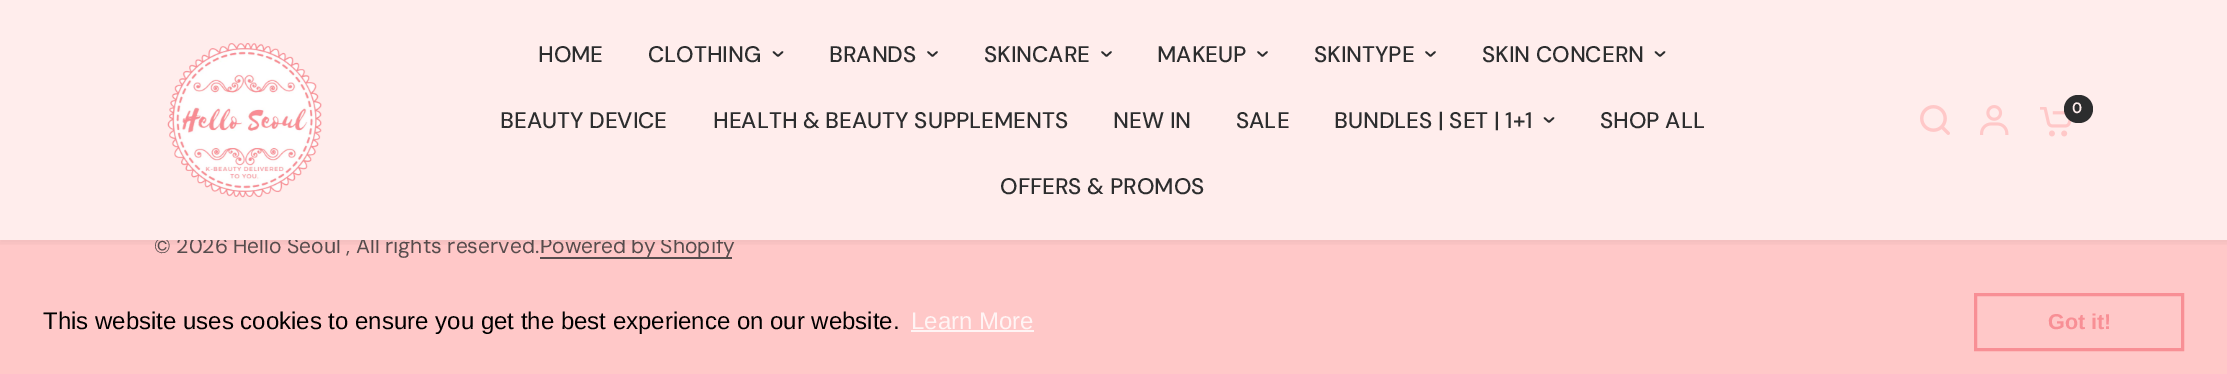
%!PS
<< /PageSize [2227 374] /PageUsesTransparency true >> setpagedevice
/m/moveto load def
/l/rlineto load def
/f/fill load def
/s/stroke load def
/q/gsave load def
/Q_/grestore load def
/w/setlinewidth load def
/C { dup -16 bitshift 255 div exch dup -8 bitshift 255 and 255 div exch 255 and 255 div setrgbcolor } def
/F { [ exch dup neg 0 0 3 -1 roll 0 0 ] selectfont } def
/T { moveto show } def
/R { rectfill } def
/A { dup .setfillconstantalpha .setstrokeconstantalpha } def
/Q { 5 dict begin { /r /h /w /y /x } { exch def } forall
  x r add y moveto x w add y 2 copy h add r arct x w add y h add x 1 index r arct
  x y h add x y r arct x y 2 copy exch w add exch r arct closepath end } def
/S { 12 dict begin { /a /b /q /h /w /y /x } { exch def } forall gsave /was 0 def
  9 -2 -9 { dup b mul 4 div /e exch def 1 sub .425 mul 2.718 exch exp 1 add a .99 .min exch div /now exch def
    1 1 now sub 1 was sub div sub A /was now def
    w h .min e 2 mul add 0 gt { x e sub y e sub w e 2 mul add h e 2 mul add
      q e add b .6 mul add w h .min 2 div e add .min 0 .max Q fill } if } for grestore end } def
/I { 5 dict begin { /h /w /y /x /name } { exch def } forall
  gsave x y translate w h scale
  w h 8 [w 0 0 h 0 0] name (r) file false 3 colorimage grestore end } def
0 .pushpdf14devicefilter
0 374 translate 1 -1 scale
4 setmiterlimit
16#FFC8C8 C
0 0 2227 374 R
/DMSans-Regular 21 F
16#564C4D C
(© 2026) 154 253 T
(Hello Seoul , All rights reserved.) 233 253 T
540 257 192 2 R
540 253 m -1 0 32 (Powered by Shopify) widthshow
16#FFEDEC C
0 0 2227 240 R
q
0 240 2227 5 rectclip
16#000000 C
0 3 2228 240 0 4 .06 S
Q_
(1.rgb) 167 43 155 155 I
/DMSans-Medium 22.5 F
16#2C2D2E C
(HOME) 538 62 T
(CLOTHING) 648 62 T
1.7 w
1 setlinecap
1 setlinejoin
782.5 52 m -4.5 4 l -4.5 -4 l s
(BRANDS) 829 62 T
937 52 m -4.5 4 l -4.5 -4 l s
(SKINCARE) 984 62 T
1111 52 m -4.5 4 l -4.5 -4 l s
(MAKEUP) 1157 62 T
1267 52 m -4.5 4 l -4.5 -4 l s
(SKINTYPE) 1314 62 T
1435 52 m -4.5 4 l -4.5 -4 l s
(SKIN CONCERN) 1482 62 T
1664.5 52 m -4.5 4 l -4.5 -4 l s
(BEAUTY DEVICE) 500 128 T
(HEALTH & BEAUTY SUPPLEMENTS) 713 128 T
(NEW IN) 1113 128 T
(SALE) 1236 128 T
(BUNDLES | SET | 1+1) 1334 128 T
1553.5 118 m -4.5 4 l -4.5 -4 l s
(SHOP ALL) 1600 128 T
(OFFERS & PROMOS) 1000 194 T
(2.rgb) 1920 105 30 30 I
(3.rgb) 1980 105 29 30 I
(4.rgb) 2040 107 32 30 I
2064 95 29 28 14 Q f
/DMSans-SemiBold 15 F
16#FFEDEC C
(0) 2072 113 T
/LiberationSans-Regular 24 F
16#000000 C
(This website uses cookies to ensure you get the best experience on our website.) 43 329 T
16#FFF4F4 C
(Learn More) 911 329 T
911 330 123 2 R
16#F88F95 C
3 w
0 setlinecap
0 setlinejoin
1975.5 294.5 207 55 rectstroke
/LiberationSans-Bold 21.5 F
(Got it!) 2048 329 T
.poppdf14devicefilter showpage
